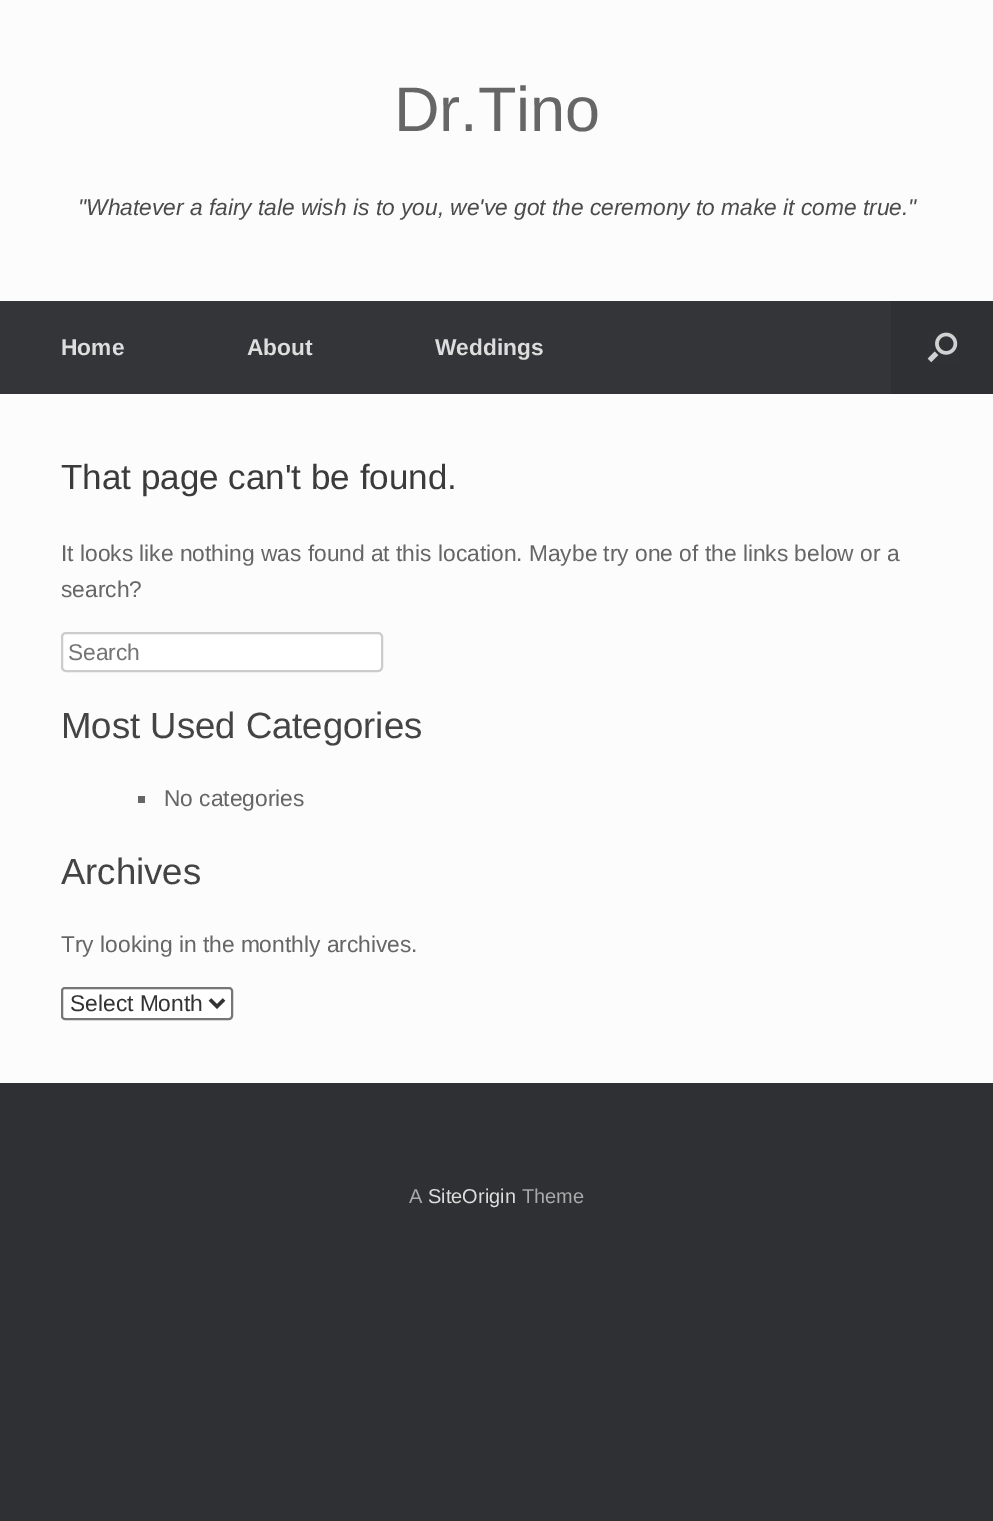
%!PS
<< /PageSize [993 1521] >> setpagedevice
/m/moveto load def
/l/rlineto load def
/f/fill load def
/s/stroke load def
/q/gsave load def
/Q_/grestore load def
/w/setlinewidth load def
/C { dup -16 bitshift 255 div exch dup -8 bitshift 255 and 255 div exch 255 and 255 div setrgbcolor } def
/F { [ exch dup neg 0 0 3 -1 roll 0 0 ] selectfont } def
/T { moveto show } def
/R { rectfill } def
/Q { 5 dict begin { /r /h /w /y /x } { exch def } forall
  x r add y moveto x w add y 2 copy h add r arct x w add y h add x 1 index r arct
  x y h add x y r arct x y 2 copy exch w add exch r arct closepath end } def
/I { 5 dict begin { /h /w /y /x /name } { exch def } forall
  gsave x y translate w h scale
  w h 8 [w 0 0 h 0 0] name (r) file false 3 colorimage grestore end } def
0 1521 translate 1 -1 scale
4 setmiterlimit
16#2F3033 C
0 0 993 1521 R
16#FCFCFC C
0 0 993 301 R
/LiberationSans-Regular 63 F
16#666666 C
(Dr.Tino) 394 131 T
/LiberationSans-Italic 22.75 F
16#4B4B4B C
("Whatever a fairy tale wish is to you, we've got the ceremony to make it come true.") 78 215 T
16#343538 C
0 301 891 93 R
/LiberationSans-Bold 22.75 F
16#DDDDDD C
(Home) 61 355 T
(About) 247 355 T
(Weddings) 435 355 T
(1.rgb) 927 332 31 31 I
16#FCFCFC C
0 394 993 689 R
/LiberationSans-Regular 35 F
16#3B3B3B C
(That page can't be found.) 61 489 T
/LiberationSans-Regular 22.75 F
16#666666 C
(It looks like nothing was found at this location. Maybe try one of the links below or a) 61 561 T
(search?) 61 597 T
16#FFFFFF C
62 633 320 38 4 Q q f Q_
16#CCCCCC C
2 w
s
16#757575 C
(Search) 68 660 T
/LiberationSans-Regular 36.5 F
16#444444 C
(Most Used Categories) 61 738 T
16#666666 C
138 796 7 7 R
/LiberationSans-Regular 22.75 F
(No categories) 164 806 T
/LiberationSans-Regular 36.5 F
16#444444 C
(Archives) 61 884 T
/LiberationSans-Regular 22.75 F
16#666666 C
(Try looking in the monthly archives.) 61 952 T
16#FFFFFF C
62 988 170 31 3 Q q f Q_
16#767676 C
s
16#333333 C
3.5 w
210 999.5 m 7 7 l 7 -7 l s
(Select Month) 70 1011 T
/LiberationSans-Regular 20 F
16#AAAAAA C
(A) 409 1203 T
16#DDDDDD C
(SiteOrigin) 428 1203 T
16#AAAAAA C
(Theme) 522 1203 T
showpage
